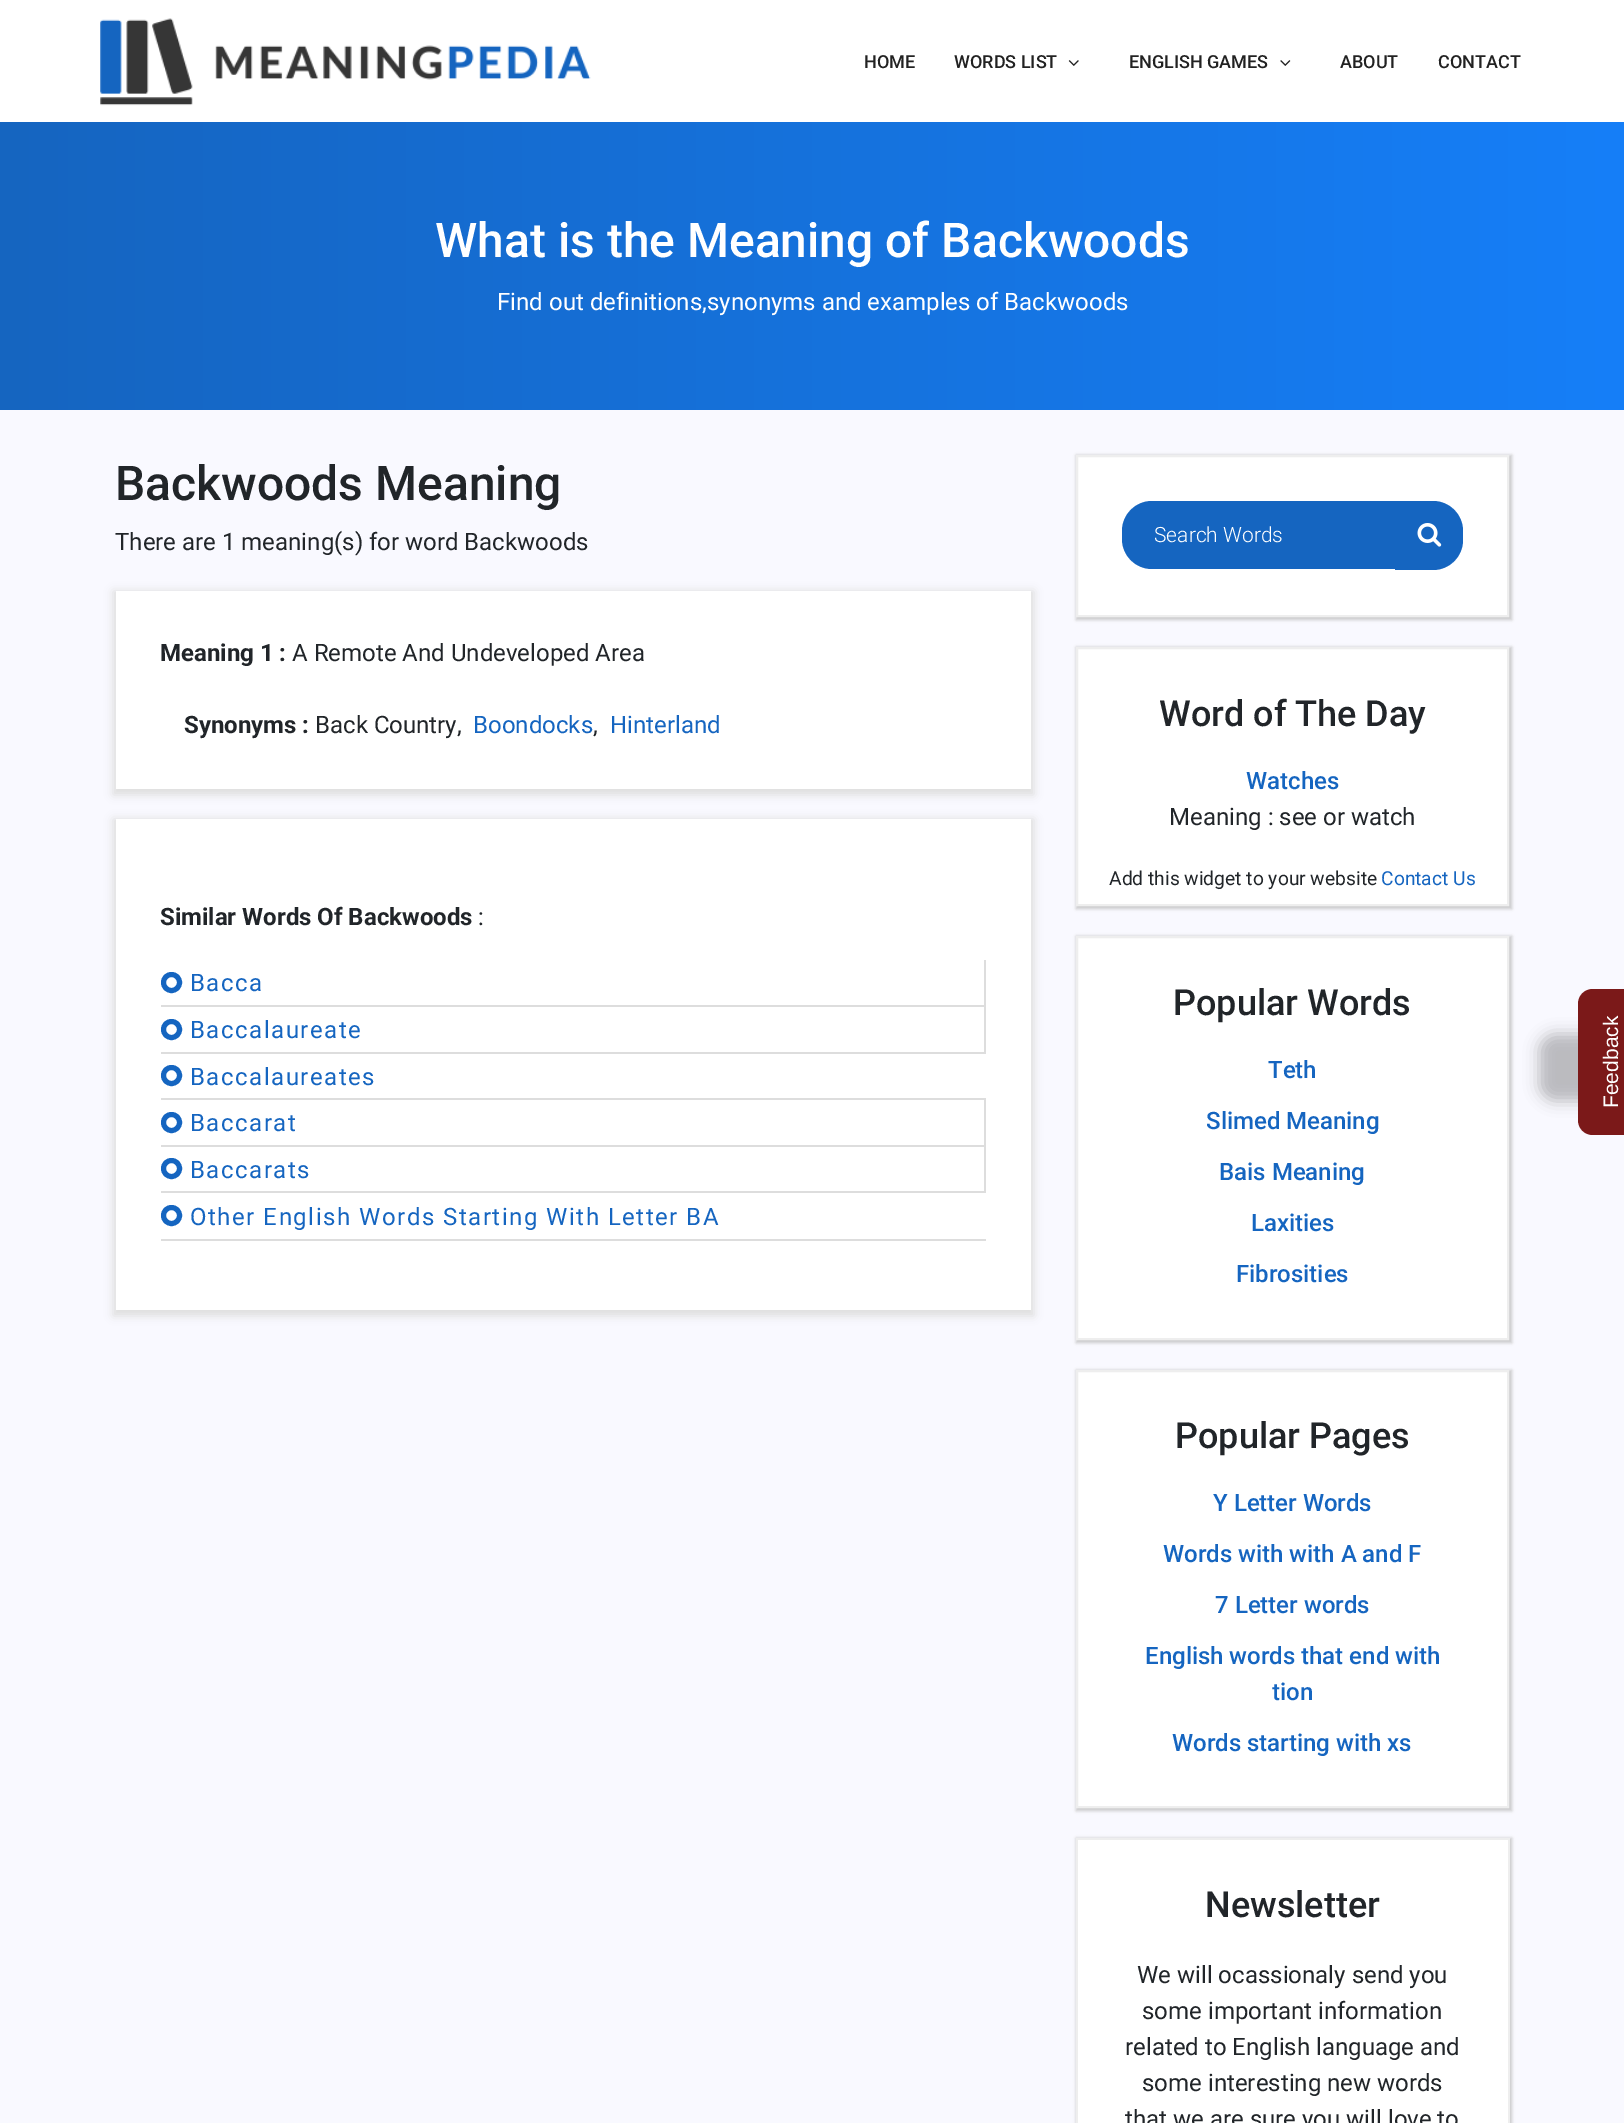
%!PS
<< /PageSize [1624 2123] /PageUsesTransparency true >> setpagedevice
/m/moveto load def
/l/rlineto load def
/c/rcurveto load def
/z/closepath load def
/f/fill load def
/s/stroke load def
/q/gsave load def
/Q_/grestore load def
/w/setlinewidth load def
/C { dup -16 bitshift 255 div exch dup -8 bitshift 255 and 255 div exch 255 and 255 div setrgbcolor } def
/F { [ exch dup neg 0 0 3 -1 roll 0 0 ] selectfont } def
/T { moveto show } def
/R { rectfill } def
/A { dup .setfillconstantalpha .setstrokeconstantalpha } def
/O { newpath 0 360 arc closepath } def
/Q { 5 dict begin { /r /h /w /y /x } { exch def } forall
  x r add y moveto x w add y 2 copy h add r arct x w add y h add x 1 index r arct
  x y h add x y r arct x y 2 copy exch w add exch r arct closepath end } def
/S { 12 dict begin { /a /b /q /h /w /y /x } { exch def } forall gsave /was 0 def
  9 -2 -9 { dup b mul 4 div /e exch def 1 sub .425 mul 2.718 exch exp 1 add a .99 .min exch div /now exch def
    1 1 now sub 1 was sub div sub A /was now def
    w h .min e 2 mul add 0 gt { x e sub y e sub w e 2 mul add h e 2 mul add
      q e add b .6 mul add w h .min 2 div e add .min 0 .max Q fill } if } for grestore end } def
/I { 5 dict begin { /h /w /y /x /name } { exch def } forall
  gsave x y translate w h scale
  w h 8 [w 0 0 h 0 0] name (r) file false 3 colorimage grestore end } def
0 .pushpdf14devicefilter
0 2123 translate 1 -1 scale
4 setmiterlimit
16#FFFFFF C
0 0 1624 2123 R
(1.rgb) 100 18 491 88 I
/Roboto-Medium 18 F
16#222222 C
(HOME) 864 68 T
(WORDS LIST) 954 68 T
(2.rgb) 1068 60 11 6 I
(ENGLISH GAMES) 1129 68 T
(3.rgb) 1280 60 11 6 I
(ABOUT) 1340 68 T
(CONTACT) 1438 68 T
q 0 122 m 1624 0 l 0 288 l -1624 0 l z clip newpath
<< /ShadingType 2 /ColorSpace /DeviceRGB /Coords [0 266 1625 265] /Extend [true true] /Function << /FunctionType 2 /Domain [0 1] /C0 [.082 .396 .753] /C1 [.082 .498 .973] /N 1 >> >> shfill Q_
/Roboto-Medium 48 F
16#FFFFFF C
(What is the Meaning of Backwoods) 435 257 T
/Roboto-Regular 24 F
(Find out definitions,synonyms and examples of Backwoods) 497 310 T
16#F9F9FF C
0 410 1624 1713 R
/Roboto-Medium 48 F
16#212529 C
(Backwoods Meaning) 115 500 T
/Roboto-Regular 24 F
(There are 1 meaning\(s\) for word Backwoods) 115 550 T
16#DDDDDD C
113 591 921 204 0 4.5 1 S
16#FFFFFF C
116 591 915 198 R
/Roboto-Bold 24 F
16#212529 C
(Meaning 1 :) 160 661 T
/Roboto-Regular 24 F
(A Remote And Undeveloped Area) 292 661 T
/Roboto-Bold 24 F
(Synonyms :) 184 733 T
/Roboto-Regular 24 F
(Back Country,) 315 733 T
16#1565C0 C
(Boondocks) 473 733 T
16#212529 C
(,) 593 733 T
16#1565C0 C
(Hinterland) 610 733 T
16#DDDDDD C
113 819 921 497 0 4.5 1 S
16#FFFFFF C
116 819 915 491 R
/Roboto-Bold 24 F
16#212529 C
(Similar Words Of Backwoods) 160 925 T
/Roboto-Regular 24 F
(:) 478 925 T
16#DDDDDD C
984 960 2 93 R
161 1005 825 2 R
16#1565C0 C
5 w
171.5 982.5 8 O s
190 991 m 1.5 0 (Bacca) ashow
16#DDDDDD C
161 1052 825 2 R
16#1565C0 C
171.5 1029.5 8 O s
190 1038 m 1.5 0 (Baccalaureate) ashow
16#DDDDDD C
161 1098 825 2 R
16#1565C0 C
171.5 1075.5 8 O s
190 1085 m 1.5 0 (Baccalaureates) ashow
16#DDDDDD C
984 1100 2 46 R
161 1145 825 2 R
16#1565C0 C
171.5 1122.5 8 O s
190 1131 m 1.5 0 (Baccarat) ashow
16#DDDDDD C
984 1146 2 47 R
161 1191 825 2 R
16#1565C0 C
171.5 1168.5 8 O s
190 1178 m 1.5 0 (Baccarats) ashow
16#DDDDDD C
161 1239 825 2 R
16#1565C0 C
171.5 1215.5 8 O s
190 1225 m 1.5 0 (Other English Words Starting With Letter BA) ashow
16#CCCCCC C
1076 455 436 165 0 1.5 1 S
16#FFFFFF C
1077 456 m 431 0 l 0 160 l -431 0 l z q f Q_
16#EEEEEE C
2 w
s
16#1565C0 C
1152 501 m 243 0 l 0 68 l -243 0 l -16.5 0 -30 -13.5 -30 -30 c 0 -8 l 0 -16.5 13.5 -30 30 -30 c z f
/Roboto-Light 21 F
16#FFFFFF C
(Search Words) 1154 542 T
16#1565C0 C
1395 501 m 38 0 l 16.5 0 30 13.5 30 30 c 0 9 l 0 16.5 -13.5 30 -30 30 c -38 0 l z f
(4.rgb) 1417 523 25 24 I
16#CCCCCC C
1076 647 436 262 0 1.5 1 S
16#FFFFFF C
1077 648 m 431 0 l 0 257 l -431 0 l z q f Q_
16#EEEEEE C
s
/Roboto-Medium 36 F
16#212529 C
(Word of The Day) 1159 726 T
/Roboto-Medium 24 F
16#1565C0 C
(Watches) 1246 789 T
/Roboto-Regular 24 F
16#212529 C
(Meaning : see or watch) 1169 825 T
/Roboto-Regular 19.25 F
(Add this widget to your website) 1109 885 T
16#1565C0 C
(Contact Us) 1381 885 T
16#CCCCCC C
1076 936 436 407 0 1.5 1 S
16#FFFFFF C
1077 937 m 431 0 l 0 402 l -431 0 l z q f Q_
16#EEEEEE C
s
/Roboto-Medium 36 F
16#212529 C
(Popular Words) 1173 1015 T
/Roboto-Medium 24 F
16#1565C0 C
(Teth) 1268 1078 T
(Slimed Meaning) 1206 1129 T
(Bais Meaning) 1219 1180 T
(Laxities) 1251 1231 T
(Fibrosities) 1236 1282 T
16#CCCCCC C
1076 1370 436 441 0 1.5 1 S
16#FFFFFF C
1077 1371 m 431 0 l 0 436 l -431 0 l z q f Q_
16#EEEEEE C
s
/Roboto-Medium 36 F
16#212529 C
(Popular Pages) 1175 1448 T
/Roboto-Medium 24 F
16#1565C0 C
(Y Letter Words) 1213 1511 T
(Words with with A and F) 1163 1562 T
(7 Letter words) 1215 1613 T
(English words that end with) 1145 1664 T
(tion) 1272 1700 T
(Words starting with xs) 1172 1751 T
16#CCCCCC C
1076 1838 436 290 0 1.5 1 S
16#FFFFFF C
1078 1840 430 283 R
16#EEEEEE C
1076 1838 433 2 R
1508 1838 2 285 R
1076 1838 2 285 R
/Roboto-Medium 36 F
16#212529 C
(Newsletter) 1205 1917 T
/Roboto-Regular 24 F
(We will ocassionaly send you) 1137 1983 T
(some important information) 1142 2019 T
(related to English language and) 1125 2055 T
(some interesting new words) 1142 2091 T
(that we are sure you will love to) 1125 2127 T
16#000000 C
1539 1034 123 67 15 7.5 .25 S
16#7B1919 C
1578 1120 m 0 -116 l 0 -8 6 -15 15 -15 c 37 0 l 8 0 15 7 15 15 c 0 116 l 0 8 -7 15 -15 15 c -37 0 l -9 0 -15 -7 -15 -15 c z f
/LiberationSans-Regular 21 F
16#FFFFFF C
q 1618 1108 translate -90 rotate 0 0 m (Feedback) show Q_
.poppdf14devicefilter showpage
